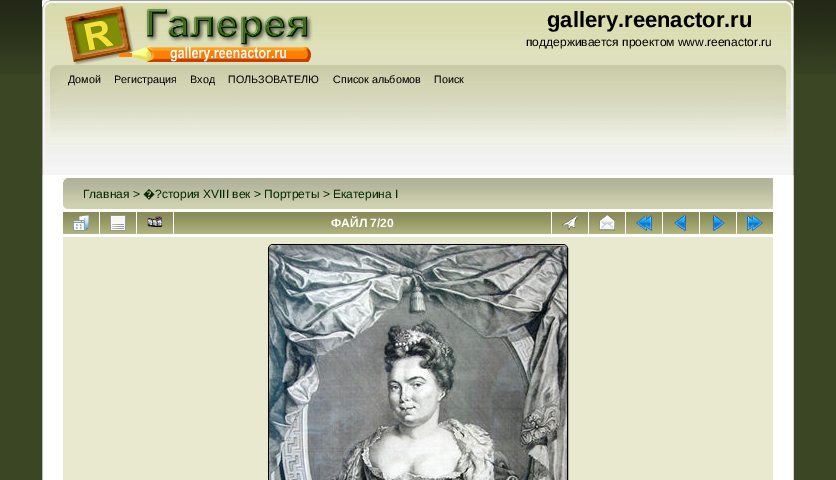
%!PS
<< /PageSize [836 480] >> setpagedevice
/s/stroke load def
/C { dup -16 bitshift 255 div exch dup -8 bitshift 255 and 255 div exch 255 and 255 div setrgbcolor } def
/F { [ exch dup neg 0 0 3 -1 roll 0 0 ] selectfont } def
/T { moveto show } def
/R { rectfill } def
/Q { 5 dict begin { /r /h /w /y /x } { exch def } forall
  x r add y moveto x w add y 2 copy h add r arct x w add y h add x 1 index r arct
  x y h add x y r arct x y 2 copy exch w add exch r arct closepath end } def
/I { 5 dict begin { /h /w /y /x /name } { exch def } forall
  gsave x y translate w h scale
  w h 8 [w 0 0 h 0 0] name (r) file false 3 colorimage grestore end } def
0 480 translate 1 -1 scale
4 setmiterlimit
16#3B4625 C
0 0 836 480 R
(1.rgb) 0 0 836 74 I
16#FEFEFE C
42 0 8 7 R
(2.rgb) 42 0 752 65 I
(3.rgb) 786 0 8 65 I
(4.rgb) 65 6 248 59 I
/LiberationSans-Bold 22 F
16#000000 C
(gallery.reenactor.ru) 547 27 T
/LiberationSans-Regular 12 F
(поддерживается проектом www.reenactor.ru) 526 46 T
(5.rgb) 42 65 695 110 I
(6.rgb) 737 65 57 110 I
/LiberationSans-Regular 10.75 F
(Домой) 68 83 T
(Регистрация) 114 83 T
(Вход) 190 83 T
(ПОЛЬЗОВАТЕЛЮ) 228 83 T
(Список альбомов) 333 83 T
(Поиск) 434 83 T
16#FFFFFF C
43 175 750 305 R
16#B7B7B7 C
42 175 1 305 R
16#D4D4D4 C
793 175 1 305 R
(7.rgb) 63 178 710 31 I
(8.rgb) 768 178 5 31 I
/LiberationSans-Regular 12 F
16#022900 C
(Главная >) 83 198 T
/NotoSans-Regular 12 F
(�) 143 198 T
/LiberationSans-Regular 12 F
(?стория XVIII век > Портреты > Екатерина I) 155 198 T
(9.rgb) 63 212 36 22 I
(10.rgb) 73 215 16 16 I
(9.rgb) 100 212 36 22 I
(11.rgb) 110 215 16 16 I
(9.rgb) 137 212 36 22 I
(12.rgb) 147 216 16 12 I
(13.rgb) 174 212 377 22 I
/LiberationSans-Bold 12 F
16#FFFFFF C
(ФАЙЛ 7/20) 331 227 T
(9.rgb) 552 212 36 22 I
(14.rgb) 562 215 16 15 I
(9.rgb) 589 212 36 22 I
(15.rgb) 599 215 16 16 I
(9.rgb) 626 212 36 22 I
(16.rgb) 636 215 16 16 I
(9.rgb) 663 212 36 22 I
(17.rgb) 674 215 12 16 I
(9.rgb) 700 212 36 22 I
(18.rgb) 713 215 12 16 I
(9.rgb) 737 212 36 22 I
(19.rgb) 747 215 16 16 I
16#E9E9D0 C
63 237 710 243 R
16#000000 C
268.5 244.5 299 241 4.5 Q s
(20.rgb) 269 245 298 235 I
showpage
